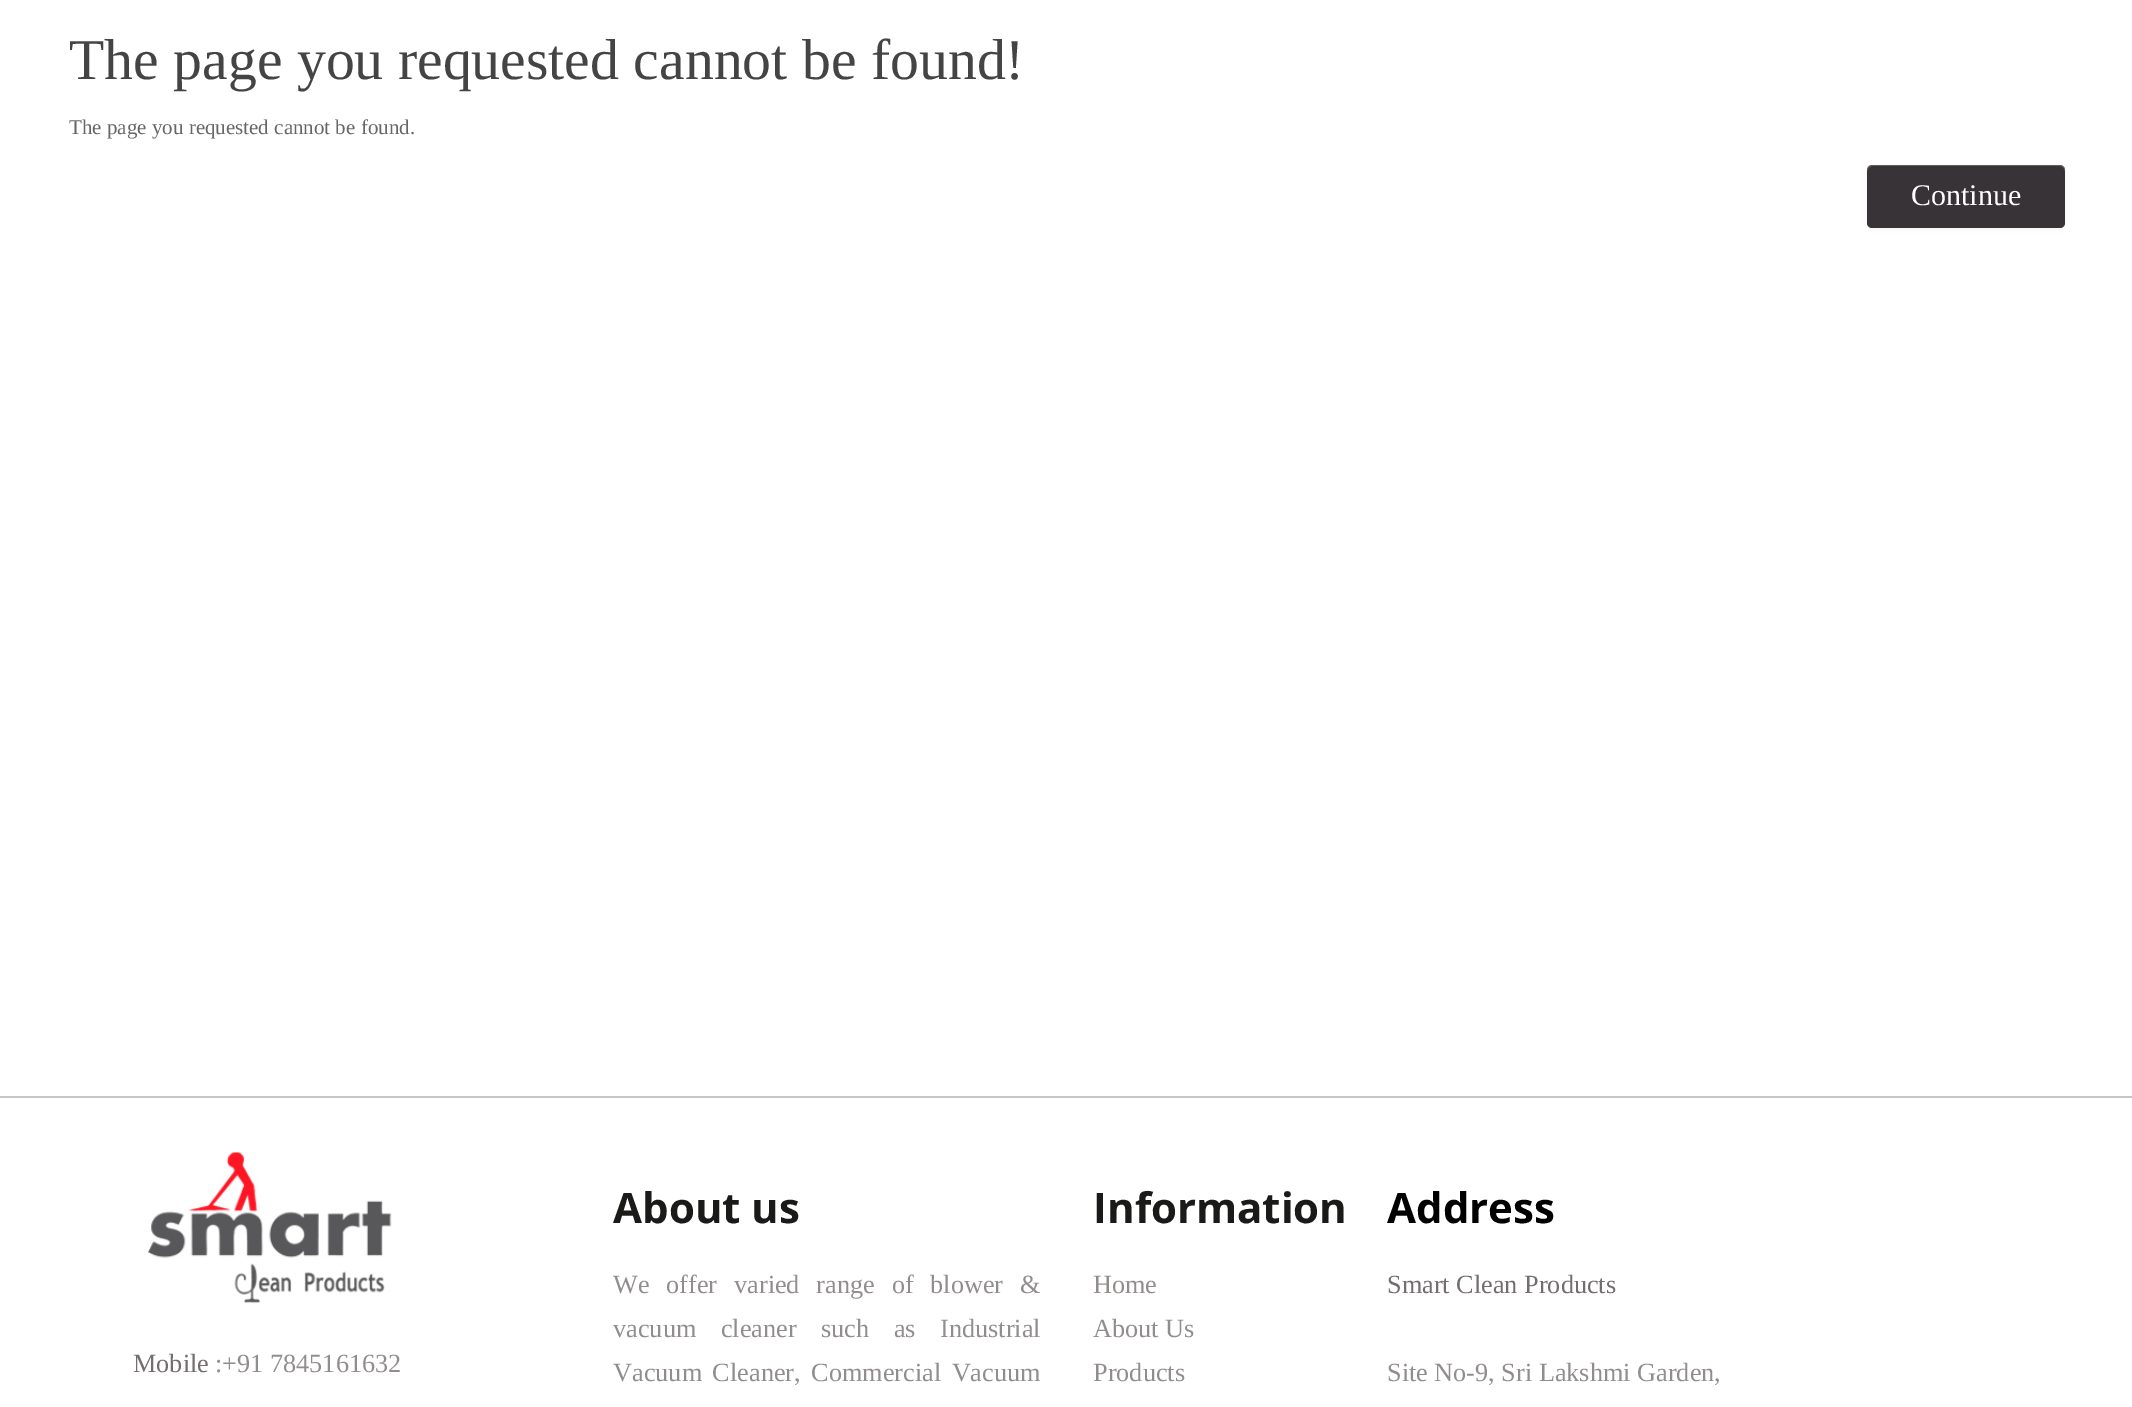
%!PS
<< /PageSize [2132 1407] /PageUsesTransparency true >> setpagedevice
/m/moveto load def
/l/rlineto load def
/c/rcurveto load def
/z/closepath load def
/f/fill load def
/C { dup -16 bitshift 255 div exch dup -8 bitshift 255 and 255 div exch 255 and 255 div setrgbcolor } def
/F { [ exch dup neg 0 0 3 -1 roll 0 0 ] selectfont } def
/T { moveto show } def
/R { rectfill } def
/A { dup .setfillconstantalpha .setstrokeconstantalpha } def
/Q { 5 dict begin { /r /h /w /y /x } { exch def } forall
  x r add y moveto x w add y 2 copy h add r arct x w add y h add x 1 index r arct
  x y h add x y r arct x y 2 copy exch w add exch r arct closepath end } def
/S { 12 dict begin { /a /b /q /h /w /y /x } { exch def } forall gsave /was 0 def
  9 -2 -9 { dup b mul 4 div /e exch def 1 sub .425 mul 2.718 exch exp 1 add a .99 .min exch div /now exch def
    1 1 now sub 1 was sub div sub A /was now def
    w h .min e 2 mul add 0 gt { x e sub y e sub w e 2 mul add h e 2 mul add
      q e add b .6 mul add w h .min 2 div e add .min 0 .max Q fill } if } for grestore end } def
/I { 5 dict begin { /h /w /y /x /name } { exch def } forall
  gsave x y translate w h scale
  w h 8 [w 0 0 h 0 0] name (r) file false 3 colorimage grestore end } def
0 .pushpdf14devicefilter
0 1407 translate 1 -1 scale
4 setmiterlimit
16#FFFFFF C
0 0 2132 1407 R
/LiberationSerif-Regular 57.75 F
16#444444 C
(The page you requested cannot be found!) 69 79 T
/LiberationSerif-Regular 21 F
16#666666 C
(The page you requested cannot be found.) 69 134 T
16#000000 C
1867 166 198 63 5 2 .05 S
16#383336 C
1867 165 198 63 5 Q f
0.2 A
16#FFFFFF C
1872 166 m 188 0 l 3 0 5 3 5 6 c 0 -2 l 0 -3 -2 -5 -5 -5 c -188 0 l -3 0 -5 2 -5 5 c 0 2 l 0 -3 3 -6 5 -6 c z f
/LiberationSerif-Regular 30 F
1 A
(Continue) 1911 205 T
16#C7C4C4 C
0 1096 2132 2 R
(1.rgb) 147 1152 245 152 I
/LiberationSerif-Regular 26.25 F
16#736D6D C
(Mobile) 133 1372 T
16#928D8D C
(:+91 7845161632) 215 1372 T
/OpenSans-Bold 42 F
16#1A1A19 C
(About us) 613 1223 T
/LiberationSerif-Regular 26.25 F
16#928D8D C
613 1293 m 10.25 0 32 (We offer varied range of blower &) widthshow
613 1337 m 18 0 32 (vacuum cleaner such as Industrial) widthshow
613 1381 m 4 0 32 (Vacuum Cleaner, Commercial Vacuum) widthshow
/OpenSans-Bold 42 F
16#1A1A19 C
(Information) 1093 1223 T
/LiberationSerif-Regular 26.25 F
16#928D8D C
(Home) 1093 1293 T
(About Us) 1093 1337 T
(Products) 1093 1381 T
/OpenSans-Bold 42 F
16#000000 C
(Address) 1387 1223 T
/LiberationSerif-Regular 26.25 F
16#736D6D C
(Smart Clean Products) 1387 1293 T
16#928D8D C
(Site No-9, Sri Lakshmi Garden,) 1387 1381 T
.poppdf14devicefilter showpage
